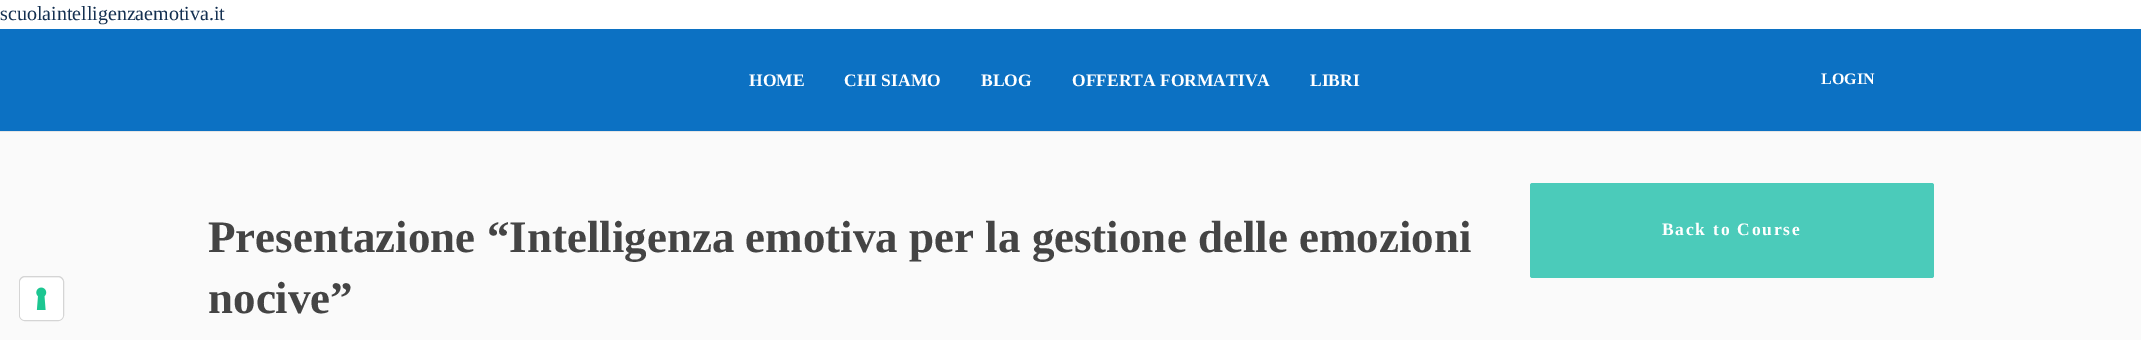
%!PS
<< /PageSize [2141 340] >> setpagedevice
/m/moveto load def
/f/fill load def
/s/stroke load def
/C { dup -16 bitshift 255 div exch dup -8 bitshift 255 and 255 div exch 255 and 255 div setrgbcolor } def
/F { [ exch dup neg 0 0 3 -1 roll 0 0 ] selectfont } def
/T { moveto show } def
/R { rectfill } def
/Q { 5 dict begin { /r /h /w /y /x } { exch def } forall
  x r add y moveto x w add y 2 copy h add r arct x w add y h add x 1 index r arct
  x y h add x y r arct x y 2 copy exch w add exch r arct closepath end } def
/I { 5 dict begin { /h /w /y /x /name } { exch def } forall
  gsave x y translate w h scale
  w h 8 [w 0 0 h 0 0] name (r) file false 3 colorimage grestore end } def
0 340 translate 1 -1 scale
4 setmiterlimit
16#FFFFFF C
0 0 2141 340 R
/LiberationSerif-Regular 20 F
16#143051 C
(scuolaintelligenzaemotiva.it) 0 20 T
16#FAFAFA C
0 132 2141 208 R
16#D5D5D5 C
19.5 276.5 44 44 5.5 Q s
16#FFFFFF C
20 278 43 42 5 Q f
(1.rgb) 36 287 11 23 I
16#0C71C3 C
0 29 2141 102 R
/LiberationSerif-Bold 17.5 F
16#FFFFFF C
(HOME) 749 86 T
(CHI SIAMO) 844 86 T
(BLOG) 981 86 T
(OFFERTA FORMATIVA) 1072 86 T
(LIBRI) 1310 86 T
/LiberationSerif-Bold 16 F
(LOGIN) 1821 84 T
16#E6E6E6 C
0 131 2141 1 R
/LiberationSerif-Bold 45 F
16#444444 C
(Presentazione “Intelligenza emotiva per la gestione delle emozioni) 208 252 T
(nocive”) 208 313 T
16#4BCBBA C
1530 183 404 95 2.5 Q f
/LiberationSerif-Bold 17.5 F
16#FFFFFF C
1662 235 m 1.75 0 (Back to Course) ashow
showpage
